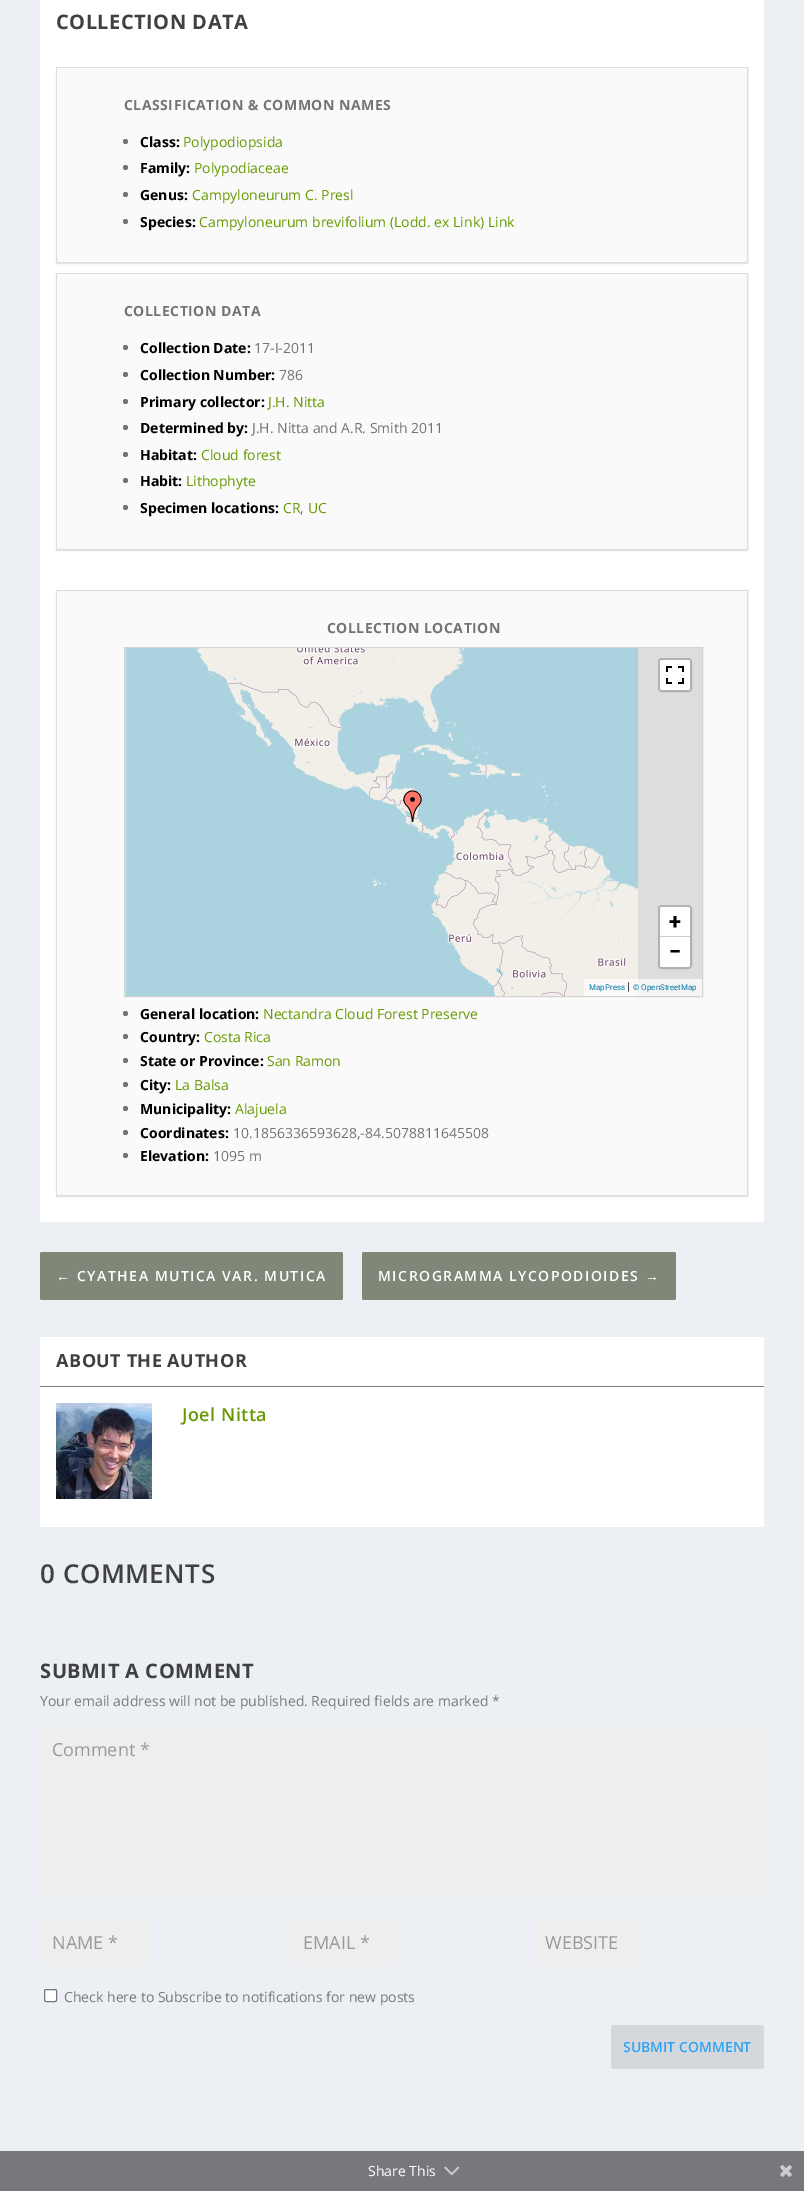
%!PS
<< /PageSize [804 2191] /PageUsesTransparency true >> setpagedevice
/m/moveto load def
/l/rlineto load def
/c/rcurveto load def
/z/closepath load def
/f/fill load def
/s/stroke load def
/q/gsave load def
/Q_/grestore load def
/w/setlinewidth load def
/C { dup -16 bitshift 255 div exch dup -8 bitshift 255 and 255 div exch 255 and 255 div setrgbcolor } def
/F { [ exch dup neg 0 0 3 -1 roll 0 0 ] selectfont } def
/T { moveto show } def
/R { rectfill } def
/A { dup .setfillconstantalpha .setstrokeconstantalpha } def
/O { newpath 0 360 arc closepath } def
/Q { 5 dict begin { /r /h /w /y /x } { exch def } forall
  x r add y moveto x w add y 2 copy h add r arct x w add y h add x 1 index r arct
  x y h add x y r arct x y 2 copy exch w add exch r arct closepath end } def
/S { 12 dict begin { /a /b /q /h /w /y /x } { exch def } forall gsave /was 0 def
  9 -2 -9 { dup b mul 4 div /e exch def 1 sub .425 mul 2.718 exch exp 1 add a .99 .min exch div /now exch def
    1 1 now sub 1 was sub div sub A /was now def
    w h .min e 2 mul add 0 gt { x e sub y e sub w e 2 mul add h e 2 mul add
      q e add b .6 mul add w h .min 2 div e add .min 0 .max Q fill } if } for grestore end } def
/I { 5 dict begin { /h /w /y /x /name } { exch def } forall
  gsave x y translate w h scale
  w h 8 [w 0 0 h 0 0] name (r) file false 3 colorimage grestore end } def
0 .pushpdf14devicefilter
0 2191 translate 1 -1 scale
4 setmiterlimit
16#ECF0F5 C
0 0 804 2191 R
16#FFFFFF C
40 0 724 1222 R
/OpenSans-Bold 20 F
16#404040 C
56 29 m .5 0 (COLLECTION DATA) ashow
16#000000 C
56 68 692 196 0 .5 .1 S
16#DDDDDD C
56.5 67.5 691 195 rectstroke
16#FAFAFA C
57 68 690 194 R
/OpenSans-Bold 14 F
16#737373 C
124 110 m .5 0 (CLASSIFICATION & COMMON NAMES) ashow
125.5 141.5 2.5 O f
16#000000 C
(Class:) 140 147 T
/OpenSans-Regular 14 F
16#669900 C
(Polypodiopsida) 183 147 T
16#737373 C
125.5 167.5 2.5 O f
/OpenSans-Bold 14 F
16#000000 C
(Family:) 140 173 T
/OpenSans-Regular 14 F
16#669900 C
(Polypodiaceae) 194 173 T
16#737373 C
125.5 194.5 2.5 O f
/OpenSans-Bold 14 F
16#000000 C
(Genus:) 140 200 T
/OpenSans-Regular 14 F
16#669900 C
(Campyloneurum C. Presl) 192 200 T
16#737373 C
125.5 221.5 2.5 O f
/OpenSans-Bold 14 F
16#000000 C
(Species:) 140 227 T
/OpenSans-Regular 14 F
16#669900 C
(Campyloneurum brevifolium \(Lodd. ex Link\) Link) 199 227 T
16#000000 C
56 274 692 277 0 .5 .1 S
16#DDDDDD C
56.5 273.5 691 276 rectstroke
16#FAFAFA C
57 274 690 275 R
/OpenSans-Bold 14 F
16#737373 C
124 316 m .5 0 (COLLECTION DATA) ashow
125.5 347.5 2.5 O f
16#000000 C
(Collection Date:) 140 353 T
/OpenSans-Regular 14 F
16#737373 C
(17-I-2011) 254 353 T
125.5 374.5 2.5 O f
/OpenSans-Bold 14 F
16#000000 C
(Collection Number:) 140 380 T
/OpenSans-Regular 14 F
16#737373 C
(786) 279 380 T
125.5 401.5 2.5 O f
/OpenSans-Bold 14 F
16#000000 C
(Primary collector:) 140 407 T
/OpenSans-Regular 14 F
16#669900 C
(J.H. Nitta) 268 407 T
16#737373 C
125.5 427.5 2.5 O f
/OpenSans-Bold 14 F
16#000000 C
(Determined by:) 140 433 T
/OpenSans-Regular 14 F
16#737373 C
(J.H. Nitta and A.R. Smith 2011) 252 433 T
125.5 454.5 2.5 O f
/OpenSans-Bold 14 F
16#000000 C
(Habitat:) 140 460 T
/OpenSans-Regular 14 F
16#669900 C
(Cloud forest) 201 460 T
16#737373 C
125.5 480.5 2.5 O f
/OpenSans-Bold 14 F
16#000000 C
(Habit:) 140 486 T
/OpenSans-Regular 14 F
16#669900 C
(Lithophyte) 186 486 T
16#737373 C
125.5 507.5 2.5 O f
/OpenSans-Bold 14 F
16#000000 C
(Specimen locations:) 140 513 T
/OpenSans-Regular 14 F
16#669900 C
(CR) 283 513 T
(UC) 308 513 T
16#737373 C
(,) 300 513 T
16#000000 C
56 591 692 606 0 .5 .1 S
16#DDDDDD C
56.5 590.5 691 605 rectstroke
16#FAFAFA C
57 591 690 604 R
/OpenSans-Bold 14 F
16#737373 C
327 633 m .5 0 (COLLECTION LOCATION) ashow
16#D3D3D3 C
124.5 647.5 578 349 rectstroke
16#DDDDDD C
125 648 577 348 R
16#B1B1B1 C
2 w
659 659 32 32 3 Q s
16#FFFFFF C
660 660 30 30 2 Q f
(1.rgb) 666 666 18 18 I
(2.rgb) 126 648 256 232 I
(3.rgb) 382 648 256 232 I
(4.rgb) 126 880 256 116 I
(5.rgb) 382 880 256 116 I
(6.rgb) 403 790 19 32 I
16#B1B1B1 C
659 906 32 62 3 Q s
16#FFFFFF C
662 907 m 26 0 l 1 0 2 1 2 2 c 0 28 l -30 0 l 0 -28 l 0 -1 1 -2 2 -2 c z f
16#CCCCCC C
660 936 30 1 R
/Roboto-Bold 22 F
16#000000 C
(+) 669 929 T
16#FFFFFF C
660 937 m 30 0 l 0 28 l 0 1 -1 2 -2 2 c -26 0 l -1 0 -2 -1 -2 -2 c z f
16#000000 C
(−) 669 959 T
0.7 A
16#FFFFFF C
584 979 118 17 R
/Roboto-Regular 8 F
1 A
16#0078A8 C
(MapPress) 589 990 T
/Roboto-Regular 11 F
16#000000 C
(|) 627 990 T
/Roboto-Regular 8 F
16#0078A8 C
(© OpenStreetMap) 633 990 T
16#737373 C
125.5 1013.5 2.5 O f
/OpenSans-Bold 14 F
16#000000 C
(General location:) 140 1019 T
/OpenSans-Regular 14 F
16#669900 C
(Nectandra Cloud Forest Preserve) 263 1019 T
16#737373 C
125.5 1036.5 2.5 O f
/OpenSans-Bold 14 F
16#000000 C
(Country:) 140 1042 T
/OpenSans-Regular 14 F
16#669900 C
(Costa Rica) 204 1042 T
16#737373 C
125.5 1060.5 2.5 O f
/OpenSans-Bold 14 F
16#000000 C
(State or Province:) 140 1066 T
/OpenSans-Regular 14 F
16#669900 C
(San Ramon) 267 1066 T
16#737373 C
125.5 1084.5 2.5 O f
/OpenSans-Bold 14 F
16#000000 C
(City:) 140 1090 T
/OpenSans-Regular 14 F
16#669900 C
(La Balsa) 175 1090 T
16#737373 C
125.5 1108.5 2.5 O f
/OpenSans-Bold 14 F
16#000000 C
(Municipality:) 140 1114 T
/OpenSans-Regular 14 F
16#669900 C
(Alajuela) 235 1114 T
16#737373 C
125.5 1132.5 2.5 O f
/OpenSans-Bold 14 F
16#000000 C
(Coordinates:) 140 1138 T
/OpenSans-Regular 14 F
16#737373 C
(10.1856336593628,-84.5078811645508) 233 1138 T
125.5 1155.5 2.5 O f
/OpenSans-Bold 14 F
16#000000 C
(Elevation:) 140 1161 T
/OpenSans-Regular 14 F
16#737373 C
(1095 m) 213 1161 T
16#808779 C
40 1252 303 48 2 Q f
/LiberationSans-Bold 14 F
16#FFFFFF C
56 1281 m 1.5 0 (←) ashow
/OpenSans-SemiBold 14 F
77 1281 m 1.5 0 (CYATHEA MUTICA VAR. MUTICA) ashow
16#808779 C
362 1252 314 48 2 Q f
16#FFFFFF C
378 1281 m 1.5 0 (MICROGRAMMA LYCOPODIOIDES) ashow
/LiberationSans-Bold 14 F
645 1281 m 1.5 0 (→) ashow
40 1337 724 190 R
/OpenSans-Bold 18 F
16#404040 C
56 1367 m .5 0 (ABOUT THE AUTHOR) ashow
16#7F7F7F C
40 1386 724 1 R
(7.rgb) 56 1403 96 96 I
/OpenSans-SemiBold 18 F
16#669900 C
182 1421 m .5 0 (Joel Nitta) ashow
/OpenSans-SemiBold 26 F
16#404040 C
40 1583 m .5 0 (0 COMMENTS) ashow
/OpenSans-Bold 20 F
40 1678 m .5 0 (SUBMIT A COMMENT) ashow
/OpenSans-Regular 14 F
16#76787B C
(Your email address will not be published. Required fields are marked *) 40 1706 T
16#EEEEEE C
40 1728 724 168 3 Q f
/OpenSans-Regular 18 F
16#999999 C
(Comment *) 52 1756 T
16#EEEEEE C
40 1918 109 48 3 Q f
16#999999 C
(NAME *) 52 1949 T
16#EEEEEE C
291 1918 104 48 3 Q f
16#999999 C
(EMAIL *) 303 1949 T
16#EEEEEE C
533 1918 108 48 3 Q f
16#999999 C
(WEBSITE) 545 1949 T
16#FFFFFF C
44.5 1989.5 12 12 1.5 Q q f Q_
16#767676 C
1 w
s
/OpenSans-Regular 14 F
16#76787B C
(Check here to Subscribe to notifications for new posts) 64 2002 T
16#D4D8DD C
611 2025 153 44 3 Q f
/OpenSans-SemiBold 14 F
16#2EA3F2 C
(SUBMIT COMMENT) 623 2052 T
16#76787B C
0 2151 804 40 R
/OpenSans-Regular 14 F
16#FFFFFF C
(Share This) 368 2176 T
(8.rgb) 444 2166 16 9 I
(9.rgb) 780 2165 12 12 I
.poppdf14devicefilter showpage
